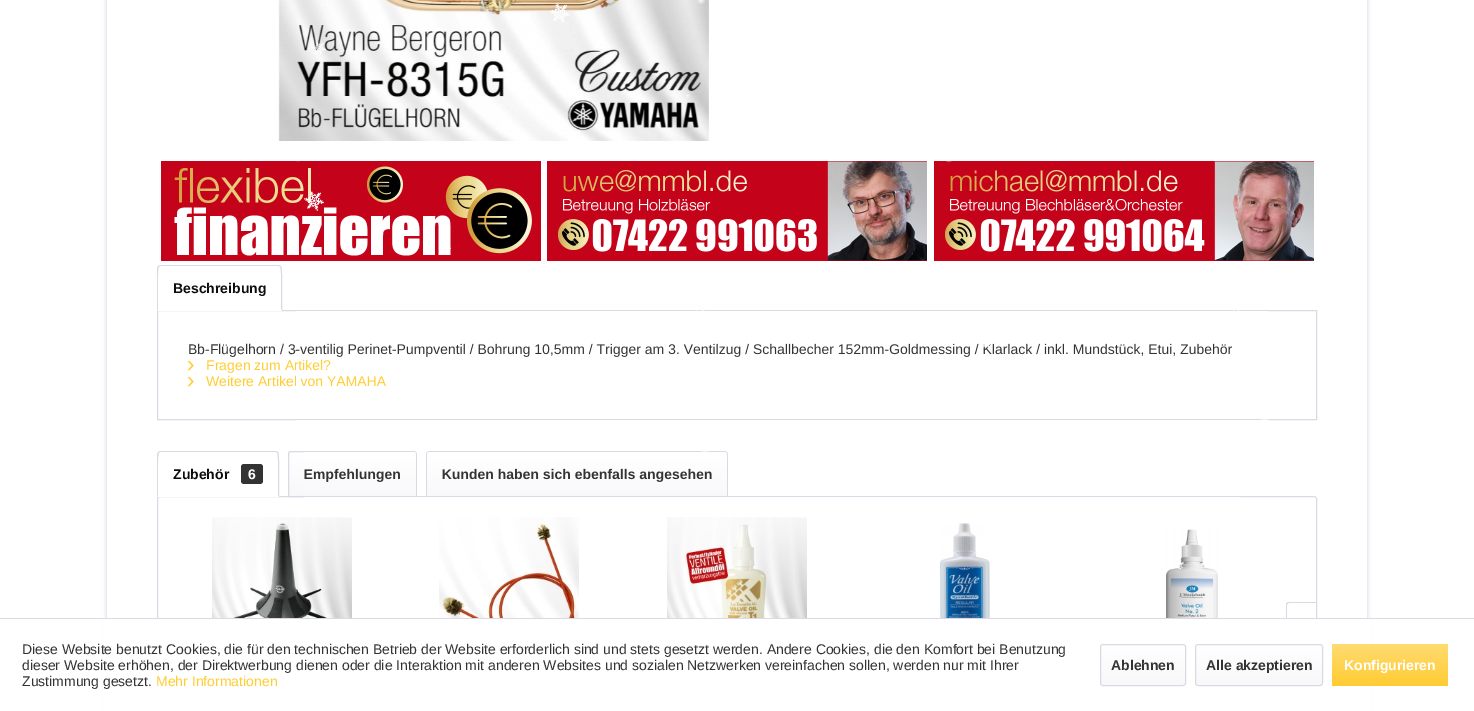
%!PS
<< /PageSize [1474 711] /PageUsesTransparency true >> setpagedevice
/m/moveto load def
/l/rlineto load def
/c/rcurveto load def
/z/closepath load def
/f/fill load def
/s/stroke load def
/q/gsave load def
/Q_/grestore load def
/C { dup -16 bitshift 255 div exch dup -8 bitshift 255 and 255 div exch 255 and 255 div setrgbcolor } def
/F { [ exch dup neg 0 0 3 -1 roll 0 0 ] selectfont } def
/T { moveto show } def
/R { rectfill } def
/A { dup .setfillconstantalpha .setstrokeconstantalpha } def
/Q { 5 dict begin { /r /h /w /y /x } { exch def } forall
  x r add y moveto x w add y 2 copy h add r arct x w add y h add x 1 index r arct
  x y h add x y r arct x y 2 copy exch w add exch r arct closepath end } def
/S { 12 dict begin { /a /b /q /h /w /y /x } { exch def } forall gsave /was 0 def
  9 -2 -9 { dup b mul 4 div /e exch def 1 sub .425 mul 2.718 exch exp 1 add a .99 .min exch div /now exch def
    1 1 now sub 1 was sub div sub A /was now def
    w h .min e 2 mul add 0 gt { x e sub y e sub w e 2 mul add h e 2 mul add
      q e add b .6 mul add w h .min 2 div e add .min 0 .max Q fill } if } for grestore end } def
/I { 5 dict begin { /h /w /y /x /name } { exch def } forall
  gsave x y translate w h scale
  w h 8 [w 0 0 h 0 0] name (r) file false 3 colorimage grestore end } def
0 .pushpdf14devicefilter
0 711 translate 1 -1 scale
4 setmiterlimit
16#FFFFFF C
0 0 1474 711 R
q
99 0 m 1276 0 l 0 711 l -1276 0 l z 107 -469 m 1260 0 l 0 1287 l -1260 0 l z eoclip newpath
16#DADAE5 C
106 -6 1262 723 0 2 1 S
Q_
(3.rgb) 278 0 431 141 I
(4.rgb) 161 161 380 100 I
(5.rgb) 547 161 380 100 I
(6.rgb) 934 161 380 100 I
16#DADAE5 C
157.5 310.5 1159 109 rectstroke
/LiberationSans-Regular 14 F
16#333333 C
(Bb-Flügelhorn / 3-ventilig Perinet-Pumpventil / Bohrung 10,5mm / Trigger am 3. Ventilzug / Schallbecher 152mm-Goldmessing / Klarlack / inkl. Mundstück, Etui, Zubehör) 188 354 T
16#FFCC33 C
(Fragen zum Artikel?) 206 370 T
(Weitere Artikel von YAMAHA) 206 386 T
q 291 452 m 123 0 l 1 0 2 1 2 2 c 0 42 l -127 0 l 0 -42 l 0 -1 1 -2 2 -2 c z clip newpath
<< /ShadingType 2 /ColorSpace /DeviceRGB /Coords [353 452 353 496] /Extend [true true] /Function << /FunctionType 2 /Domain [0 1] /C0 [1 1 1] /C1 [.973 .973 .98] /N 1 >> >> shfill Q_
16#DADAE5 C
157.5 496.5 1159 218 2.5 Q s
291 451.5 m 123 0 l 1.5 0 2.5 1 2.5 2.5 c 0 42.5 l -128 0 l 0 -42.5 l 0 -1.5 1 -2.5 2.5 -2.5 c z s
q 429 452 m 296 0 l 1 0 2 1 2 2 c 0 42 l -300 0 l 0 -42 l 0 -1 1 -2 2 -2 c z clip newpath
<< /ShadingType 2 /ColorSpace /DeviceRGB /Coords [577 452 577 496] /Extend [true true] /Function << /FunctionType 2 /Domain [0 1] /C0 [1 1 1] /C1 [.973 .973 .98] /N 1 >> >> shfill Q_
429 451.5 m 296 0 l 1.5 0 2.5 1 2.5 2.5 c 0 42.5 l -301 0 l 0 -42.5 l 0 -1.5 1 -2.5 2.5 -2.5 c z s
(1.rgb) 296 0 973 452 I
/LiberationSans-Bold 14 F
16#333333 C
(Empfehlungen) 304 479 T
(Kunden haben sich ebenfalls angesehen) 442 479 T
(8.rgb) 212 517 140 101 I
(9.rgb) 439 517 140 101 I
(10.rgb) 667 517 140 101 I
(11.rgb) 940 523 50 95 I
(12.rgb) 1166 529 52 89 I
(2.rgb) 304 3 936 589 I
16#FFFFFF C
160 265 m 119 0 l 1.5 0 3 1.5 3 3 c 0 43 l -125 0 l 0 -43 l 0 -1.5 1.5 -3 3 -3 c z f
16#DADAE5 C
160 265 m -2 1 l 1 1 l 1 -1 l 119 0 l 1 1 l 1 -1 l -2 -1 l z f
282 311 m 0 -5 1 -43 -1 -45 c -1 1 l 2 1 1 38 1 43 c z f
16#FFFFFF C
282 311 m -1 -1 l -123 0 l -1 1 l z f
16#DADAE5 C
157 311 m 1 -1 l 0 -5 -1 -42 1 -43 c -1 -1 l -1 2 l z f
16#0D0D0D C
(Beschreibung) 173 293 T
(7.rgb) 188 360 6 11 I
(7.rgb) 188 376 6 11 I
16#FFFFFF C
160 451 m 116 0 l 1.5 0 3 1.5 3 3 c 0 43 l -122 0 l 0 -43 l 0 -1.5 1.5 -3 3 -3 c z f
16#DADAE5 C
160 451 m -2 1 l 1 1 l 1 -1 l 116 0 l 1 1 l 1 -1 l -2 -1 l z f
279 497 m 0 -5 1 -43 -1 -45 c -1 1 l 2 1 1 38 1 43 c z f
16#FFFFFF C
279 497 m -1 -1 l -120 0 l -1 1 l z f
16#DADAE5 C
157 497 m 1 -1 l 0 -5 -1 -42 1 -43 c -1 -1 l -1 2 l z f
16#0D0D0D C
(Zubehör) 173 479 T
16#333333 C
241 464 22 20 3 Q f
16#FFFFFF C
(6) 248 479 T
16#DADAE5 C
1289 602 m 27 0 l 0 60 l -27 0 l -2 0 -3 -1 -3 -3 c 0 -54 l 0 -2 1 -3 3 -3 c z 1289 603 m 27 0 l 0 58 l -27 0 l -1 0 -2 -1 -2 -2 c 0 -54 l 0 -1 1 -2 2 -2 c z eofill
16#FFFFFF C
103 619 1268 92 R
16#DADAE5 C
0 618 1474 1 R
/LiberationSans-Regular 14 F
16#333333 C
(Diese Website benutzt Cookies, die für den technischen Betrieb der Website erforderlich sind und stets gesetzt werden. Andere Cookies, die den Komfort bei Benutzung) 22 654 T
(dieser Website erhöhen, der Direktwerbung dienen oder die Interaktion mit anderen Websites und sozialen Netzwerken vereinfachen sollen, werden nur mit Ihrer) 22 670 T
(Zustimmung gesetzt.) 22 686 T
16#FFCC33 C
(Mehr Informationen) 156 686 T
q 1101 645 84 40 2 Q clip newpath
<< /ShadingType 2 /ColorSpace /DeviceRGB /Coords [1143 645 1143 685] /Extend [true true] /Function << /FunctionType 2 /Domain [0 1] /C0 [1 1 1] /C1 [.973 .973 .98] /N 1 >> >> shfill Q_
16#DADAE5 C
1100.5 644.5 85 41 2.5 Q s
/LiberationSans-Bold 14 F
16#333333 C
(Ablehnen) 1111 670 T
q 1196 645 126 40 2 Q clip newpath
<< /ShadingType 2 /ColorSpace /DeviceRGB /Coords [1259 645 1259 685] /Extend [true true] /Function << /FunctionType 2 /Domain [0 1] /C0 [1 1 1] /C1 [.973 .973 .98] /N 1 >> >> shfill Q_
16#DADAE5 C
1195.5 644.5 127 41 2.5 Q s
16#333333 C
(Alle akzeptieren) 1206 670 T
q 1332 644 116 42 3 Q clip newpath
<< /ShadingType 2 /ColorSpace /DeviceRGB /Coords [1390 644 1390 686] /Extend [true true] /Function << /FunctionType 2 /Domain [0 1] /C0 [1 .859 .439] /C1 [1 .8 .2] /N 1 >> >> shfill Q_
16#FFFFFF C
(Konfigurieren) 1344 670 T
.poppdf14devicefilter showpage
